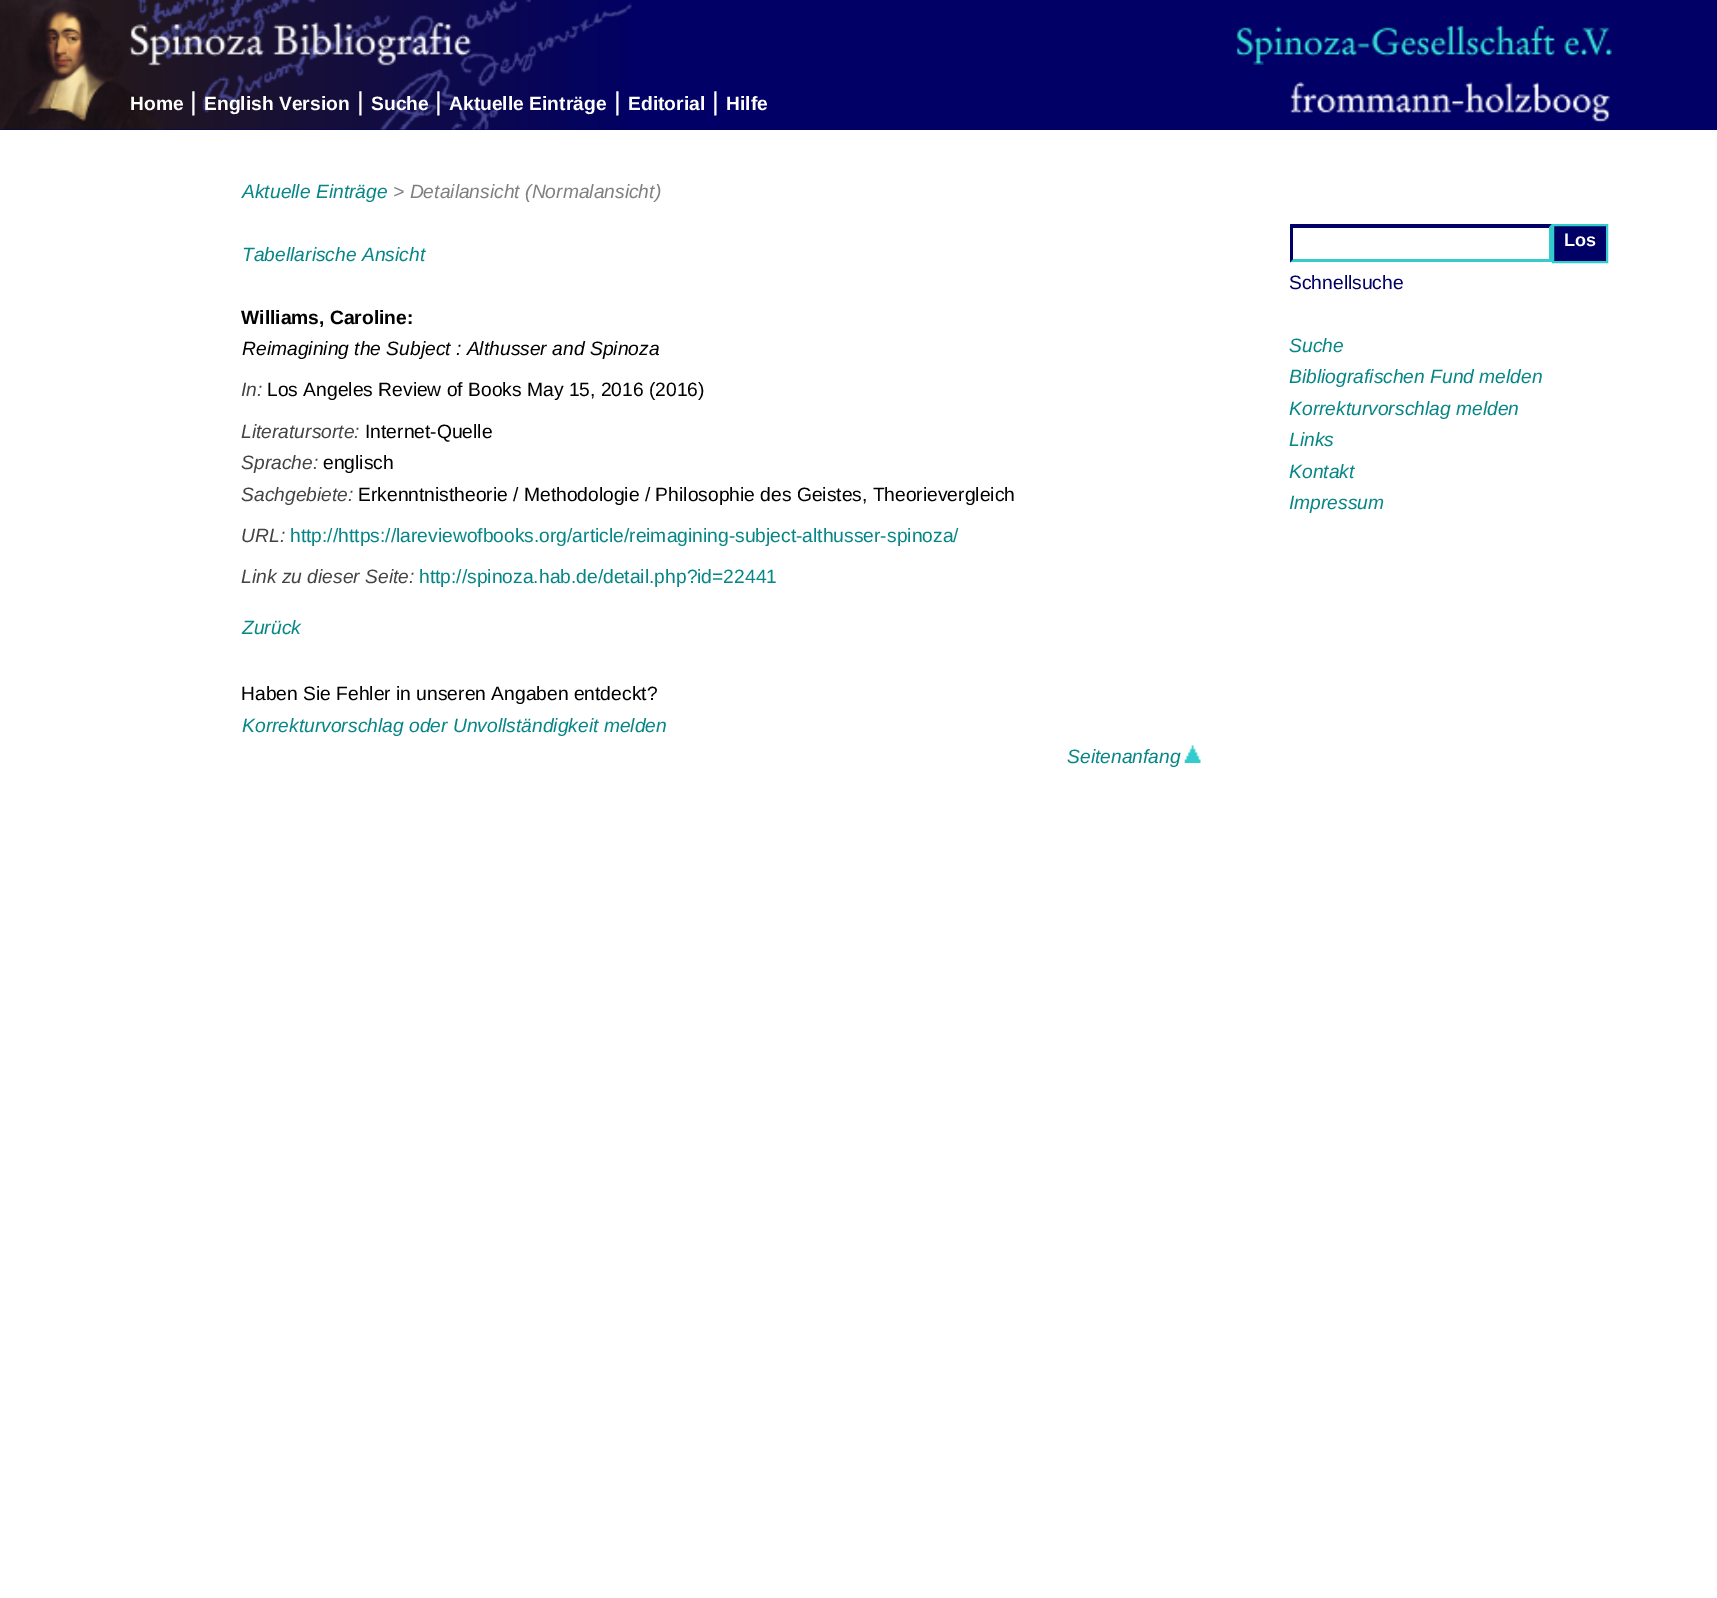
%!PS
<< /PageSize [1717 1598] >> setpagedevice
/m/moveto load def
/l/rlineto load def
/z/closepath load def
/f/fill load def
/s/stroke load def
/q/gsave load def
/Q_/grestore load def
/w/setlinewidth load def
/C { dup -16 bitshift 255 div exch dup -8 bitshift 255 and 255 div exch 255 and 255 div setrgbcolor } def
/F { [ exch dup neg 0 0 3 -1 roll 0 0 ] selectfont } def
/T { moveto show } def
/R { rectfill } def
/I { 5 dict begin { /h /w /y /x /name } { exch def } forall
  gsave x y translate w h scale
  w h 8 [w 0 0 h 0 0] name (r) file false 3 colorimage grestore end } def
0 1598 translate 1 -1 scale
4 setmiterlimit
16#FFFFFF C
0 0 1717 1598 R
16#000066 C
0 0 1717 130 R
(1.rgb) 0 0 632 130 I
(2.rgb) 1236 24 376 41 I
/LiberationSans-Bold 19.25 F
16#FFFFFF C
(Home) 130 110 T
/LiberationSans-Regular 26 F
(|) 190 110 T
/LiberationSans-Bold 19.25 F
(English Version) 204 110 T
/LiberationSans-Regular 26 F
(|) 357 110 T
/LiberationSans-Bold 19.25 F
(Suche) 371 110 T
/LiberationSans-Regular 26 F
(|) 435 110 T
/LiberationSans-Bold 19.25 F
(Aktuelle Einträge) 449 110 T
/LiberationSans-Regular 26 F
(|) 614 110 T
/LiberationSans-Bold 19.25 F
(Editorial) 628 110 T
/LiberationSans-Regular 26 F
(|) 712 110 T
/LiberationSans-Bold 19.25 F
(Hilfe) 726 110 T
(3.rgb) 1289 82 321 41 I
/LiberationSans-Italic 19.25 F
16#068686 C
(Aktuelle Einträge) 242 198 T
16#808080 C
(> Detailansicht \(Normalansicht\)) 393 198 T
16#068686 C
(Tabellarische Ansicht) 242 261 T
/LiberationSans-Bold 19.25 F
16#000000 C
(Williams, Caroline:) 241 324 T
/LiberationSans-Italic 19.25 F
(Reimagining the Subject : Althusser and Spinoza) 242 355 T
16#444444 C
(In:) 241 396 T
/LiberationSans-Regular 19.25 F
16#000000 C
(Los Angeles Review of Books May 15, 2016 \(2016\)) 267 396 T
/LiberationSans-Italic 19.25 F
16#444444 C
(Literatursorte:) 241 438 T
/LiberationSans-Regular 19.25 F
16#000000 C
(Internet-Quelle) 365 438 T
/LiberationSans-Italic 19.25 F
16#444444 C
(Sprache:) 241 469 T
/LiberationSans-Regular 19.25 F
16#000000 C
(englisch) 323 469 T
/LiberationSans-Italic 19.25 F
16#444444 C
(Sachgebiete:) 241 501 T
/LiberationSans-Regular 19.25 F
16#000000 C
(Erkenntnistheorie / Methodologie / Philosophie des Geistes, Theorievergleich) 358 501 T
/LiberationSans-Italic 19.25 F
16#444444 C
(URL:) 241 542 T
/LiberationSans-Regular 19.25 F
16#068686 C
(http://https://lareviewofbooks.org/article/reimagining-subject-althusser-spinoza/) 290 542 T
/LiberationSans-Italic 19.25 F
16#444444 C
(Link zu dieser Seite:) 241 583 T
/LiberationSans-Regular 19.25 F
16#068686 C
(http://spinoza.hab.de/detail.php?id=22441) 419 583 T
/LiberationSans-Italic 19.25 F
(Zurück) 242 634 T
/LiberationSans-Regular 19.25 F
16#000000 C
(Haben Sie Fehler in unseren Angaben entdeckt?) 241 700 T
/LiberationSans-Italic 19.25 F
16#068686 C
(Korrekturvorschlag oder Unvollständigkeit melden) 242 732 T
(Seitenanfang) 1067 763 T
(4.rgb) 1184 745 17 18 I
16#000066 C
1290 224 m 262 0 l -3 4 l -256 0 l z f
16#33CCCC C
1552 224 m 0 38.5 l -3 -3.5 l 0 -31.5 l z f
1552 262 m -262 0 l 3 -3 l 256 0 l z f
16#000066 C
1290 262.5 m 0 -38.5 l 3 3.5 l 0 31.5 l z f
1553 225 m 54 0 l 0 37 l -54 0 l z q f Q_
16#33CCCC C
2 w
s
/LiberationSans-Bold 18 F
16#FFFFFF C
(Los) 1564 246 T
/LiberationSans-Regular 19.25 F
16#000066 C
(Schnellsuche) 1289 289 T
/LiberationSans-Italic 19.25 F
16#068686 C
(Suche) 1289 352 T
(Bibliografischen Fund melden) 1289 383 T
(Korrekturvorschlag melden) 1289 415 T
(Links) 1289 446 T
(Kontakt) 1289 478 T
(Impressum) 1289 509 T
showpage
